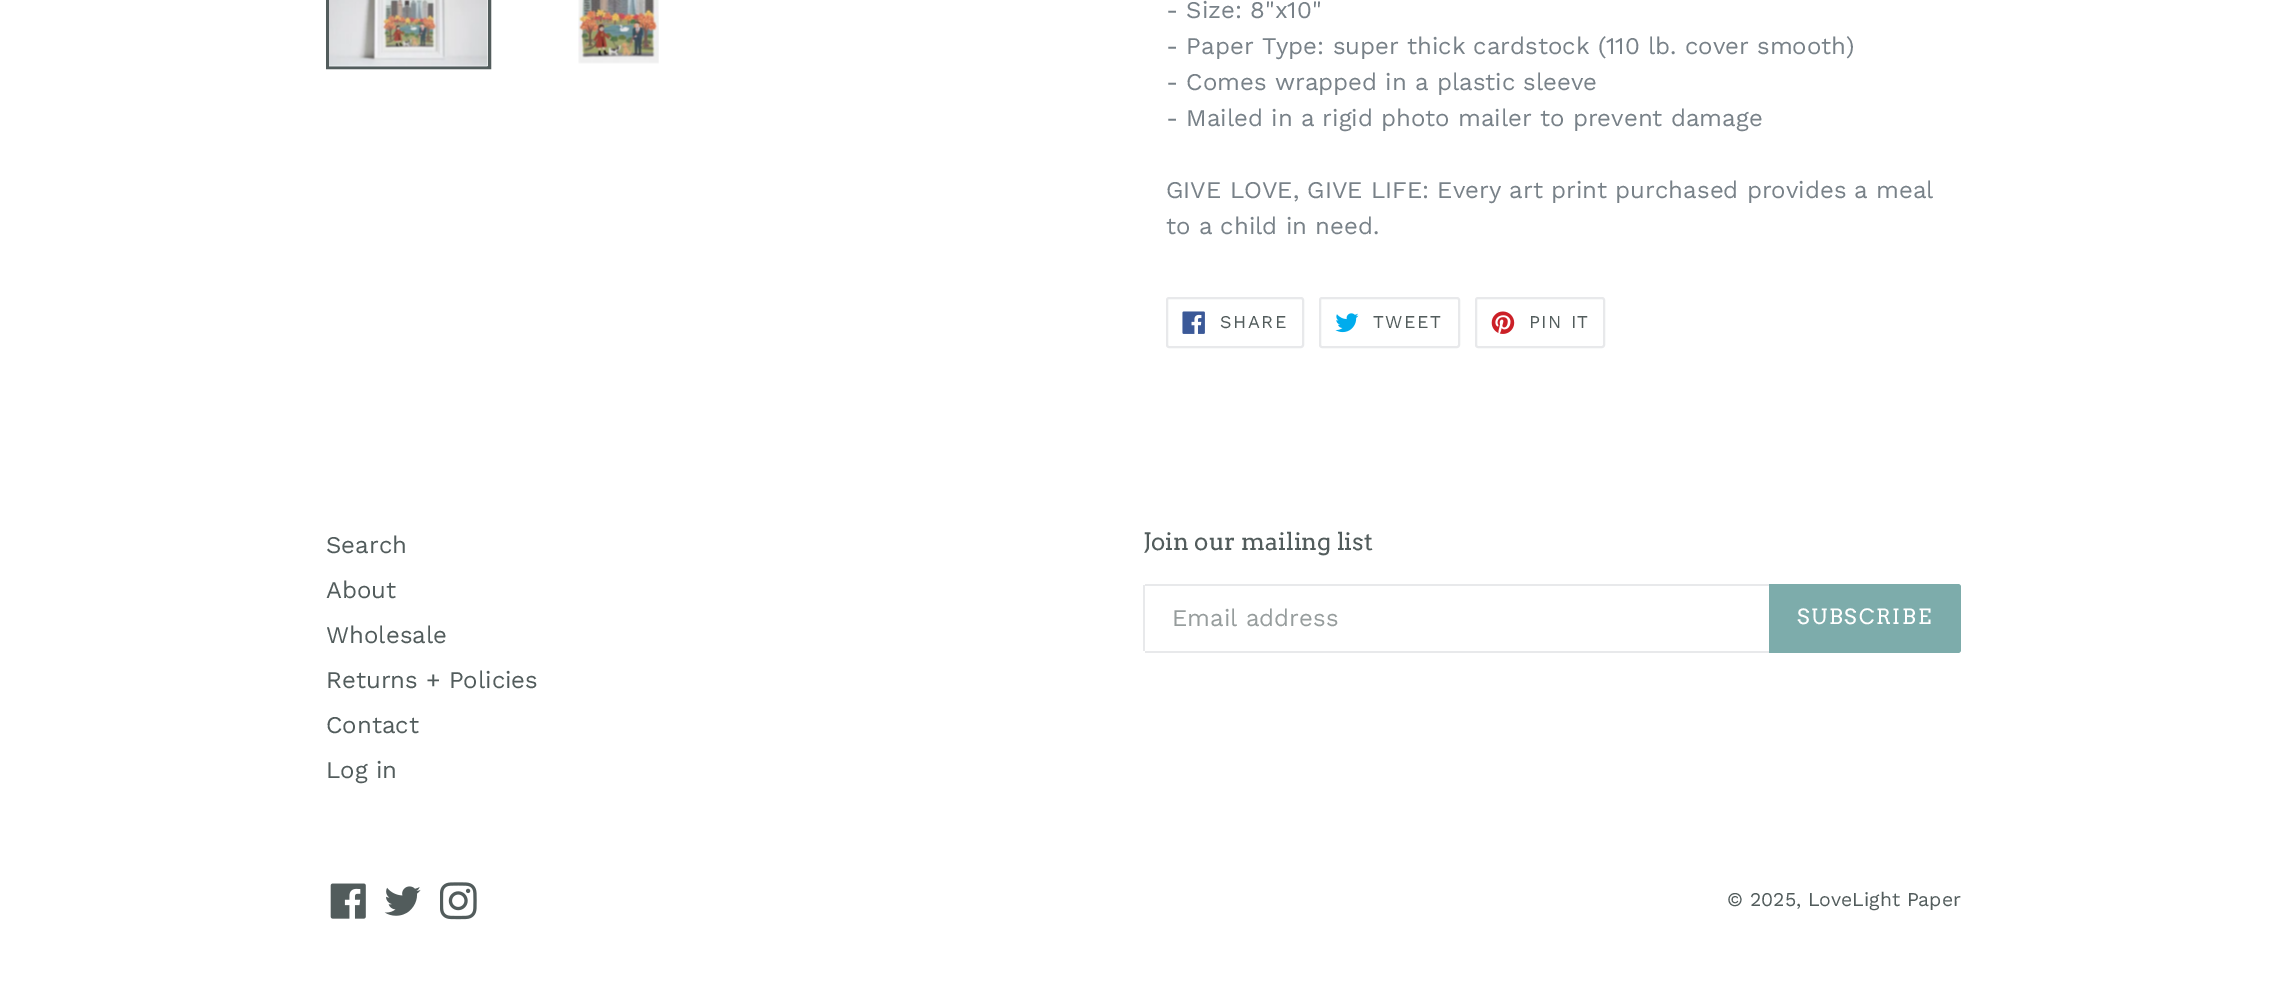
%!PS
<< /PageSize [2286 1001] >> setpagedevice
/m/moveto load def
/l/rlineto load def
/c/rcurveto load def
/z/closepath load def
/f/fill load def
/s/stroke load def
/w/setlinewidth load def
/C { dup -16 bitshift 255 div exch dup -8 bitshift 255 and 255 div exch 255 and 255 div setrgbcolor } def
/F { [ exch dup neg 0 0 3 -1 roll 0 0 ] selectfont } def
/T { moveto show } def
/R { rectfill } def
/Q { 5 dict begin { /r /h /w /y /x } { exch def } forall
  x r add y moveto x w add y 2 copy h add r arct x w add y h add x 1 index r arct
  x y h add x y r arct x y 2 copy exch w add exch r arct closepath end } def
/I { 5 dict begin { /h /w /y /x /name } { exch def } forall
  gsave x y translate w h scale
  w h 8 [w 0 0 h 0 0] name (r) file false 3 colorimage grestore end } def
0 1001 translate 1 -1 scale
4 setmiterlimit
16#FFFFFF C
0 0 2286 1001 R
16#525C5C C
3 w
327.5 -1.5 162 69 rectstroke
(1.rgb) 329 0 159 67 I
(2.rgb) 578 0 81 64 I
/WorkSans-Regular 24 F
16#788188 C
(- Size: 8"x10") 1166 18 T
(- Paper Type: super thick cardstock \(110 lb. cover smooth\)) 1166 54 T
(- Comes wrapped in a plastic sleeve) 1166 90 T
(- Mailed in a rigid photo mailer to prevent damage) 1166 126 T
(GIVE LOVE, GIVE LIFE: Every art print purchased provides a meal) 1166 198 T
(to a child in need.) 1166 234 T
16#E8E9EB C
2 w
1167 298 136 49 2 Q s
(3.rgb) 1182 311 23 23 I
/WorkSans-Regular 18 F
16#525C5C C
1220 328 m 1.5 0 (SHARE) ashow
16#E8E9EB C
1320 298 139 49 2 Q s
(4.rgb) 1335 313 24 20 I
16#525C5C C
1373 328 m 1.5 0 (TWEET) ashow
16#E8E9EB C
1476 298 128 49 2 Q s
(5.rgb) 1491 311 24 23 I
16#525C5C C
1529 328 m 1.5 0 (PIN IT) ashow
/WorkSans-Regular 24 F
(Search) 326 553 T
(About) 326 598 T
(Wholesale) 326 643 T
(Returns + Policies) 326 688 T
(Contact) 326 733 T
(Log in) 326 778 T
/Arvo-Regular 24 F
(Join our mailing list) 1143 550 T
16#E8E9EB C
1145 584 624 2 R
1145 651 624 2 R
1143 585 2 66 R
/WorkSans-Regular 24 F
16#979D9D C
(Email address) 1172 626 T
16#7DACAB C
1769 584 m 189 0 l 1.5 0 3 1.5 3 3 c 0 63 l 0 1.5 -1.5 3 -3 3 c -189 0 l z f
/Arvo-Regular 21 F
16#FFFFFF C
1797 624 m 1.75 0 (SUBSCRIBE) ashow
(6.rgb) 330 883 36 36 I
(7.rgb) 384 886 37 30 I
(8.rgb) 440 882 37 38 I
/WorkSans-Regular 19.5 F
16#525C5C C
(© 2025, LoveLight Paper) 1727 906 T
showpage
